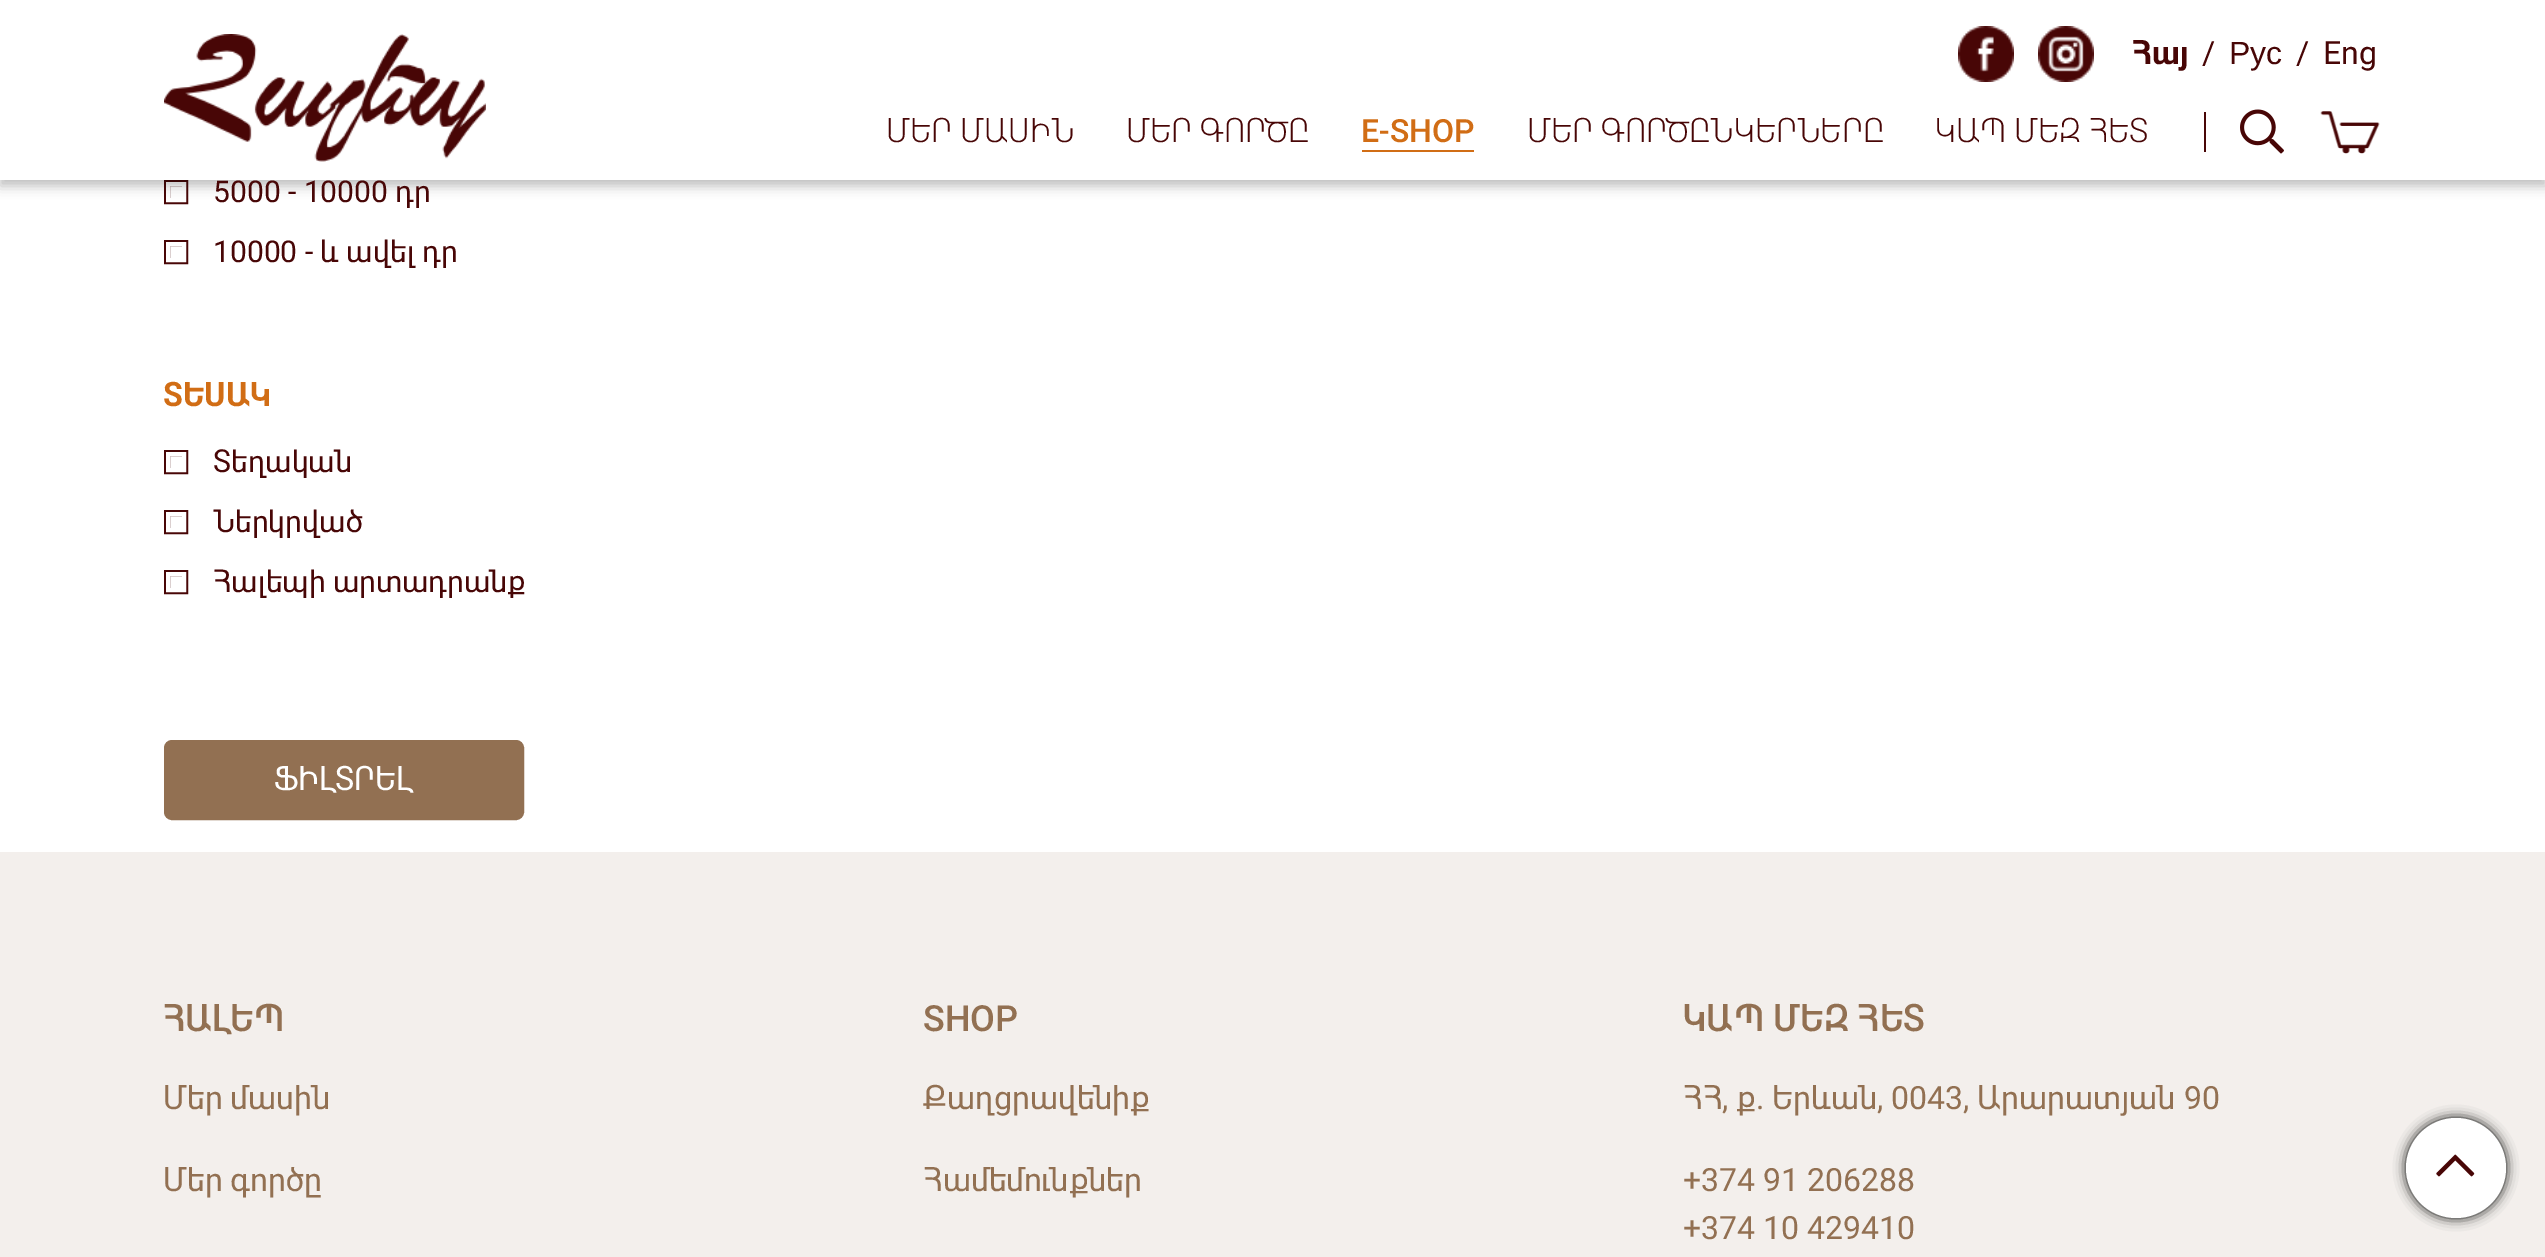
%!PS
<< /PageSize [2545 1257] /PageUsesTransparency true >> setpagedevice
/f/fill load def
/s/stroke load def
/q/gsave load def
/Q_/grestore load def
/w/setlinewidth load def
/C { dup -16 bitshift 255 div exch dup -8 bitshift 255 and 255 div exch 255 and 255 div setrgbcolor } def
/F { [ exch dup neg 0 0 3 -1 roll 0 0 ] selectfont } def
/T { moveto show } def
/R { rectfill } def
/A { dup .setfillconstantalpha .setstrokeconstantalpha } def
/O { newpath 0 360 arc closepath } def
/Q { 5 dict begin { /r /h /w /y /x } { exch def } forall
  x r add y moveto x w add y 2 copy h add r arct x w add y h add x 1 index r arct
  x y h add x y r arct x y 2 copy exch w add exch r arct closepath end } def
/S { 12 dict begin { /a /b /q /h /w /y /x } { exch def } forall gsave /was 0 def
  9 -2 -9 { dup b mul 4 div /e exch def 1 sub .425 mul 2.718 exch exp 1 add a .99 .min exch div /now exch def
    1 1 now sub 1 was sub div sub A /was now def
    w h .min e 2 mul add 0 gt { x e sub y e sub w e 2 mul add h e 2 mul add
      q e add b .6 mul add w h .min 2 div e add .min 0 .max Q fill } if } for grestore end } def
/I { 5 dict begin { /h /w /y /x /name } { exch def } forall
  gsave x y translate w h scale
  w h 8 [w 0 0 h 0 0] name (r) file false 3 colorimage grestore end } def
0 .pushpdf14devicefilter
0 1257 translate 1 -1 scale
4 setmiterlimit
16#FFFFFF C
0 0 2545 1257 R
16#480606 C
6 w
167 183 18 18 rectstroke
16#FFFFFF C
4 w
168 184 16 16 rectstroke
16#000000 C
0 6 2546 180 0 6 .25 S
16#FFFFFF C
0 0 2545 180 R
(1.rgb) 164 34 322 128 I
(2.rgb) 1958 26 56 56 I
(3.rgb) 2038 26 56 56 I
/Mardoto-Bold 32 F
16#480606 C
(Հայ) 2132 64 T
/Mardoto-Regular 32 F
(/) 2202 64 T
/LiberationSans-Regular 32 F
(Рус) 2229 64 T
/Mardoto-Regular 32 F
(/) 2296 64 T
(Eng) 2323 64 T
/Mardoto-Light 32 F
(ՄԵՐ ՄԱՍԻՆ) 886 142 T
(ՄԵՐ ԳՈՐԾԸ) 1126 142 T
/Mardoto-Medium 32 F
16#D16D15 C
(E-SHOP) 1361 142 T
1362 150 112 2 R
/Mardoto-Light 32 F
16#480606 C
(ՄԵՐ ԳՈՐԾԸՆԿԵՐՆԵՐԸ) 1527 142 T
(ԿԱՊ ՄԵԶ ՀԵՏ) 1935 142 T
2204 112 2 40 R
(4.rgb) 2240 109 44 45 I
(5.rgb) 2320 111 60 43 I
/Mardoto-Regular 30 F
(5000 - 10000 դր) 213 202 T
6 w
167 243 18 18 rectstroke
16#FFFFFF C
4 w
168 244 16 16 rectstroke
16#480606 C
(10000 - և ավել դր) 213 262 T
/Mardoto-Bold 32 F
16#D16D15 C
(ՏԵՍԱԿ) 163 406 T
16#480606 C
6 w
167 453 18 18 rectstroke
16#FFFFFF C
4 w
168 454 16 16 rectstroke
/Mardoto-Regular 30 F
16#480606 C
(Տեղական) 213 472 T
6 w
167 513 18 18 rectstroke
16#FFFFFF C
4 w
168 514 16 16 rectstroke
16#480606 C
(Ներկրված) 213 532 T
6 w
167 573 18 18 rectstroke
16#FFFFFF C
4 w
168 574 16 16 rectstroke
16#480606 C
(Հալեպի արտադրանք) 213 592 T
16#927052 C
165 741 358 78 7 Q q f Q_
2 w
s
/Mardoto-Regular 32 F
16#FFFFFF C
(ՖԻԼՏՐԵԼ) 274 790 T
16#F3EFEC C
0 852 2545 405 R
/Mardoto-Medium 36 F
16#927052 C
(ՀԱԼԵՊ) 163 1031 T
/Mardoto-Regular 32 F
(Մեր մասին) 163 1109 T
(Մեր գործը) 163 1191 T
/Mardoto-Medium 36 F
(SHOP) 923 1031 T
/Mardoto-Regular 32 F
(Քաղցրավենիք) 923 1109 T
(Համեմունքներ) 923 1191 T
/Mardoto-Medium 36 F
(ԿԱՊ ՄԵԶ ՀԵՏ) 1683 1031 T
/Mardoto-Regular 32 F
(ՀՀ, ք. Երևան, 0043, Արարատյան 90) 1683 1109 T
(+374 91 206288) 1683 1191 T
(+374 10 429410) 1683 1239 T
16#000000 C
2406 1118 100 100 50 6 1 S
16#FFFFFF C
2456 1168 50 O f
(6.rgb) 2436 1154 39 23 I
.poppdf14devicefilter showpage
